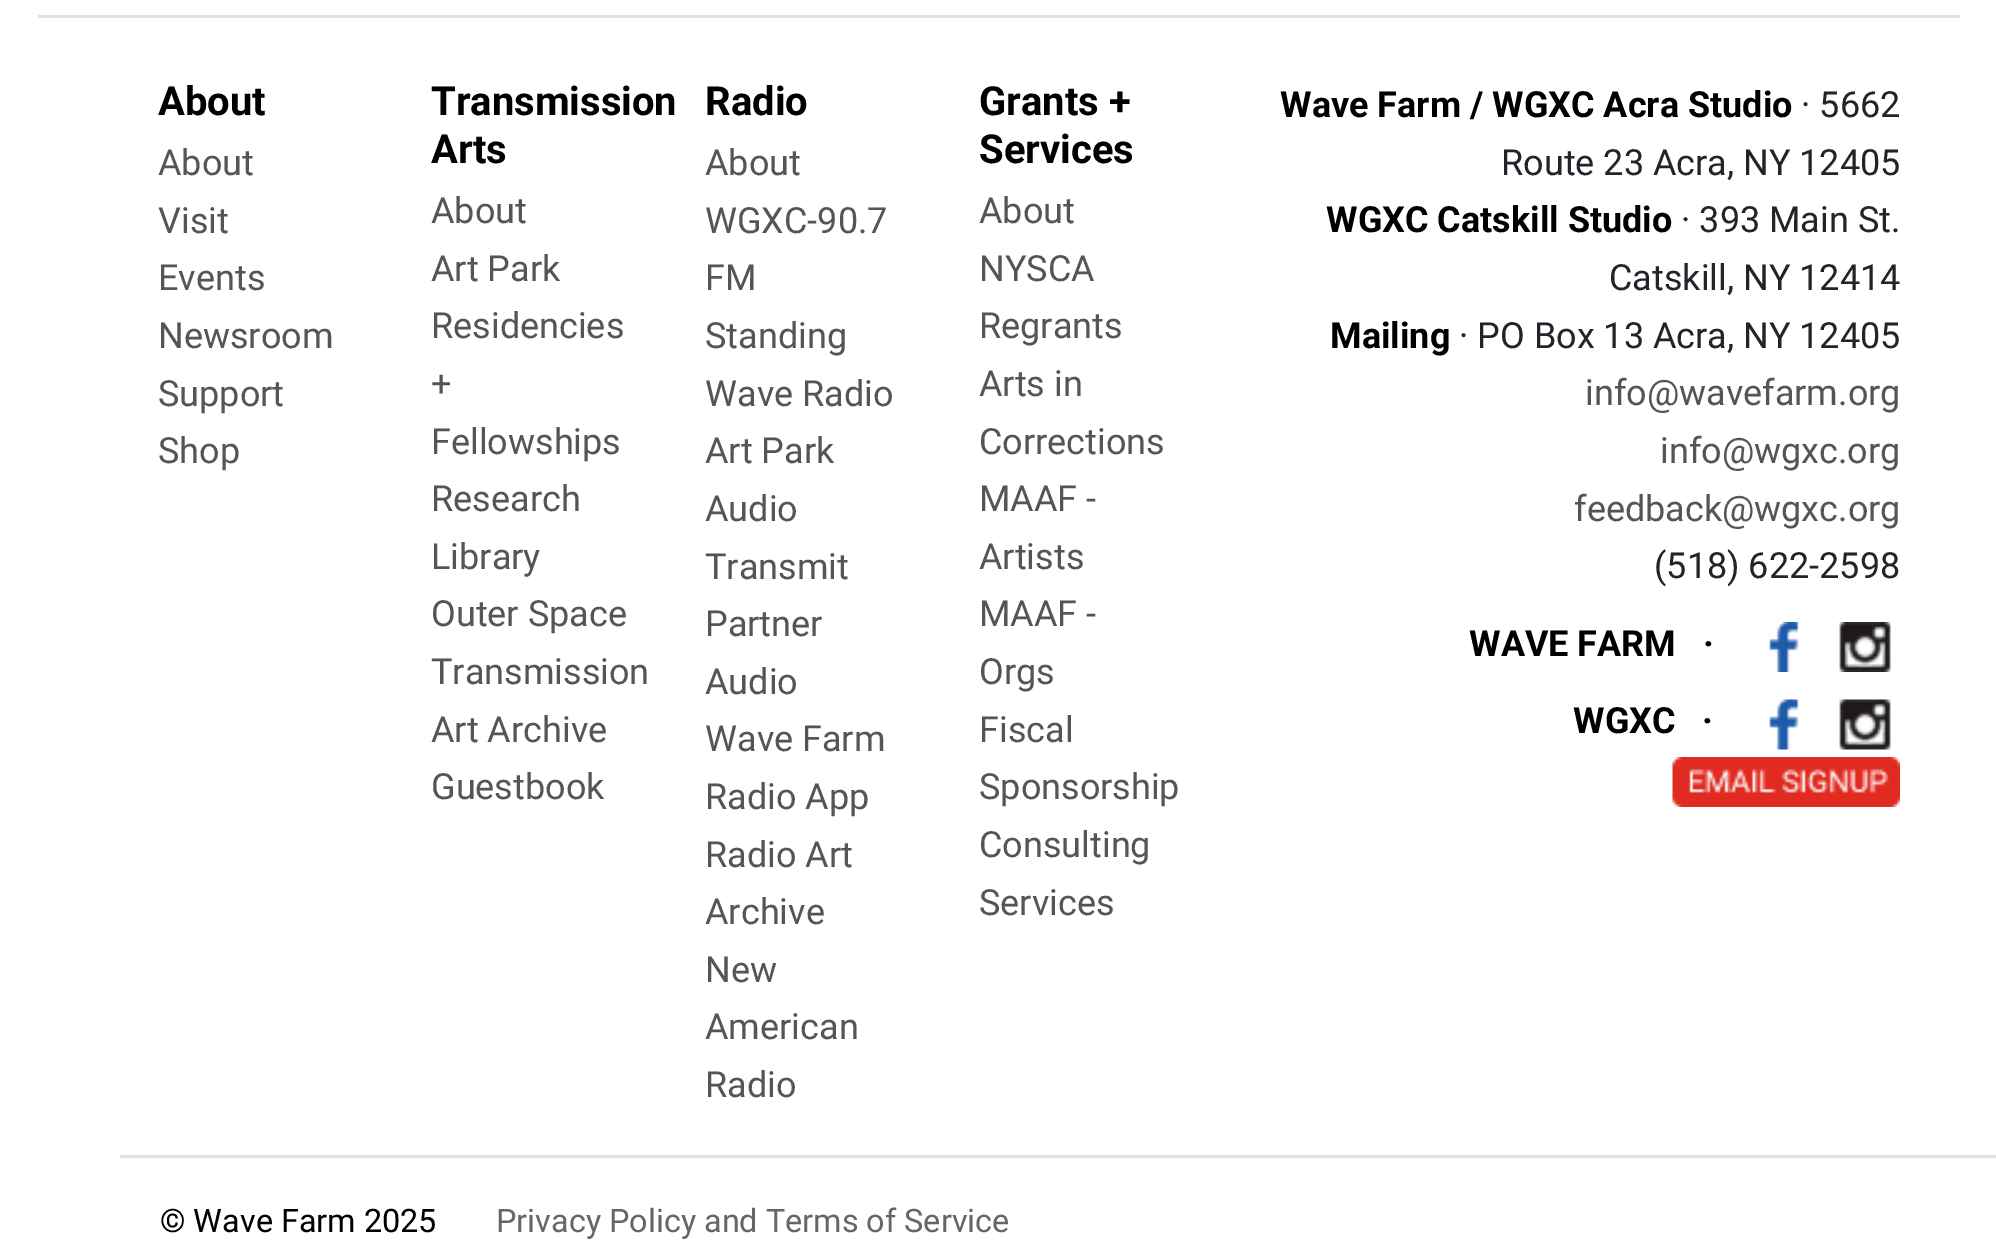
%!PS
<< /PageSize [1996 1249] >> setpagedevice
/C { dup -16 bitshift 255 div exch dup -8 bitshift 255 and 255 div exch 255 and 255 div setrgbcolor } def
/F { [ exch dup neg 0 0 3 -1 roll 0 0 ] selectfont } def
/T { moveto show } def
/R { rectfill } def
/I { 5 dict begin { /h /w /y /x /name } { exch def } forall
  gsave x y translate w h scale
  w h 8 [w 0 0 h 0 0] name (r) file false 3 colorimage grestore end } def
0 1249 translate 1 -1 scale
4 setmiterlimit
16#FFFFFF C
0 0 1996 1249 R
16#DEE2E6 C
38 15 1922 3 R
120 1155 1876 3 R
/Roboto-Bold 40 F
16#000000 C
(About) 158 115 T
/Roboto-Regular 36 F
16#555555 C
(About) 158 175 T
(Visit) 158 233 T
(Events) 158 290 T
(Newsroom) 158 348 T
(Support) 158 406 T
(Shop) 158 463 T
/Roboto-Bold 40 F
16#000000 C
(Transmission) 431 115 T
(Arts) 431 163 T
/Roboto-Regular 36 F
16#555555 C
(About) 431 223 T
(Art Park) 431 281 T
(Residencies) 431 338 T
(+) 431 396 T
(Fellowships) 431 454 T
(Research) 431 511 T
(Library) 431 569 T
(Outer Space) 431 626 T
(Transmission) 431 684 T
(Art Archive) 431 742 T
(Guestbook) 431 799 T
/Roboto-Bold 40 F
16#000000 C
(Radio) 705 115 T
/Roboto-Regular 36 F
16#555555 C
(About) 705 175 T
(WGXC-90.7) 705 233 T
(FM) 705 290 T
(Standing) 705 348 T
(Wave Radio) 705 406 T
(Art Park) 705 463 T
(Audio) 705 521 T
(Transmit) 705 579 T
(Partner) 705 636 T
(Audio) 705 694 T
(Wave Farm) 705 751 T
(Radio App) 705 809 T
(Radio Art) 705 867 T
(Archive) 705 924 T
(New) 705 982 T
(American) 705 1039 T
(Radio) 705 1097 T
/Roboto-Bold 40 F
16#000000 C
(Grants +) 979 115 T
(Services) 979 163 T
/Roboto-Regular 36 F
16#555555 C
(About) 979 223 T
(NYSCA) 979 281 T
(Regrants) 979 338 T
(Arts in) 979 396 T
(Corrections) 979 454 T
(MAAF -) 979 511 T
(Artists) 979 569 T
(MAAF -) 979 626 T
(Orgs) 979 684 T
(Fiscal) 979 742 T
(Sponsorship) 979 799 T
(Consulting) 979 857 T
(Services) 979 915 T
/Roboto-Bold 36 F
16#000000 C
(Wave Farm / WGXC Acra Studio) 1280 117 T
/Roboto-Regular 36 F
16#212529 C
(· 5662) 1801 117 T
(Route 23 Acra, NY 12405) 1501 175 T
/Roboto-Bold 36 F
16#000000 C
(WGXC Catskill Studio) 1326 232 T
/Roboto-Regular 36 F
16#212529 C
(· 393 Main St.) 1681 232 T
(Catskill, NY 12414) 1609 290 T
/Roboto-Bold 36 F
16#000000 C
(Mailing) 1330 348 T
/Roboto-Regular 36 F
16#212529 C
(· PO Box 13 Acra, NY 12405) 1459 348 T
16#555555 C
(info@wavefarm.org) 1585 405 T
(info@wgxc.org) 1660 463 T
(feedback@wgxc.org) 1574 521 T
16#212529 C
(\(518\) 622-2598) 1654 578 T
/Roboto-Bold 36 F
16#000000 C
(WAVE FARM   ·) 1469 656 T
(1.rgb) 1769 622 30 50 I
(2.rgb) 1839 622 52 50 I
(WGXC   ·) 1573 733 T
(3.rgb) 1769 699 30 51 I
(4.rgb) 1839 699 52 51 I
(5.rgb) 1672 757 228 50 I
/Roboto-Regular 32.4 F
(© Wave Farm 2025) 160 1232 T
16#666666 C
(Privacy Policy and Terms of Service) 496 1232 T
showpage
